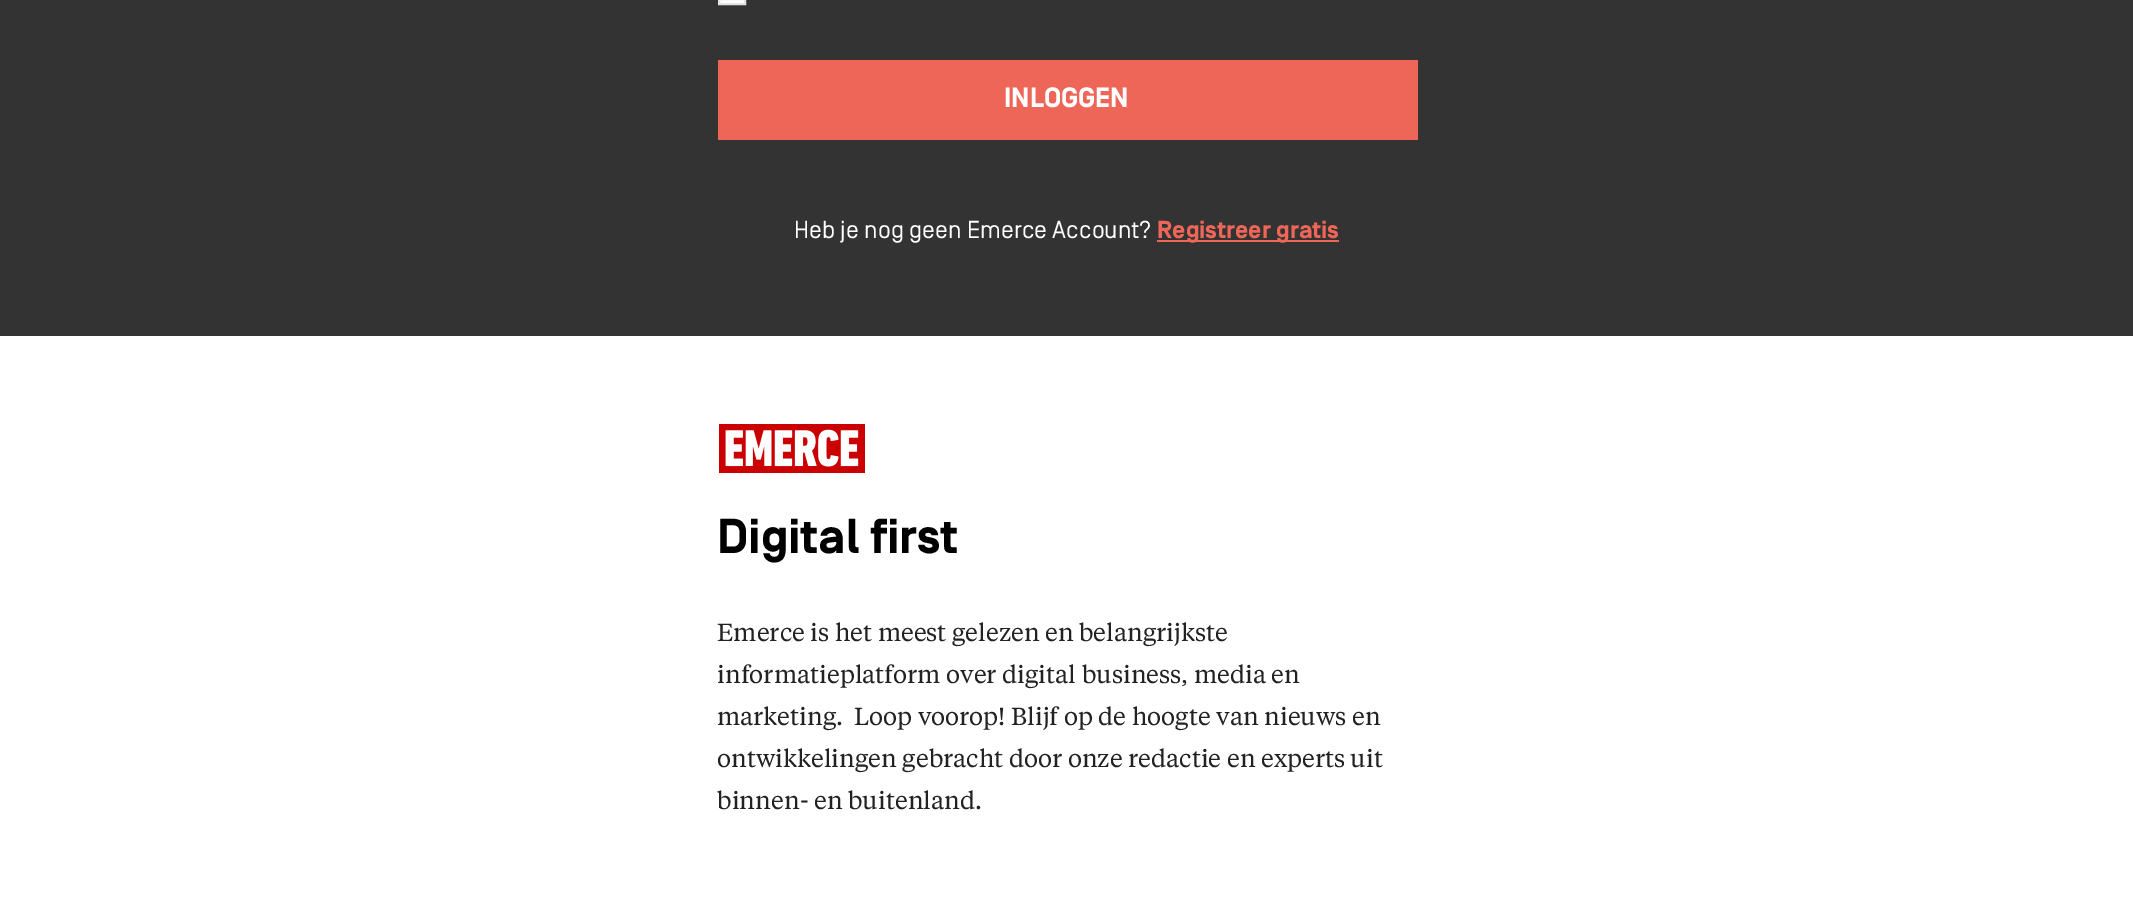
%!PS
<< /PageSize [2133 908] >> setpagedevice
/m/moveto load def
/l/rlineto load def
/z/closepath load def
/f/fill load def
/s/stroke load def
/q/gsave load def
/Q_/grestore load def
/w/setlinewidth load def
/C { dup -16 bitshift 255 div exch dup -8 bitshift 255 and 255 div exch 255 and 255 div setrgbcolor } def
/F { [ exch dup neg 0 0 3 -1 roll 0 0 ] selectfont } def
/T { moveto show } def
/R { rectfill } def
/I { 5 dict begin { /h /w /y /x /name } { exch def } forall
  gsave x y translate w h scale
  w h 8 [w 0 0 h 0 0] name (r) file false 3 colorimage grestore end } def
0 908 translate 1 -1 scale
4 setmiterlimit
16#FFFFFF C
0 0 2133 908 R
16#333333 C
0 0 2133 336 R
16#FFFFFF C
719 -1 m 26 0 l 0 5 l -26 0 l z q f Q_
16#E4E4E4 C
2 w
s
16#ED6657 C
718 60 700 80 R
/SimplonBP-Bold 28 F
16#FFFFFF C
(INLOGGEN) 1004 107 T
/SimplonBP-Regular 24.5 F
(Heb je nog geen Emerce Account?) 794 238 T
16#ED6657 C
1157 240 182 2 R
/SimplonBP-Bold 24.5 F
(Registreer gratis) 1157 238 T
(1.rgb) 719 424 146 49 I
/SimplonBP-Bold 49 F
16#000000 C
(Digital first) 717 553 T
/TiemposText-Regular 24.5 F
16#222222 C
(Emerce is het meest gelezen en belangrijkste) 717 641 T
(informatieplatform over digital business, media en) 717 683 T
(marketing.  Loop voorop! Blijf op de hoogte van nieuws en) 717 725 T
(ontwikkelingen gebracht door onze redactie en experts uit) 717 767 T
(binnen- en buitenland.) 717 809 T
showpage
